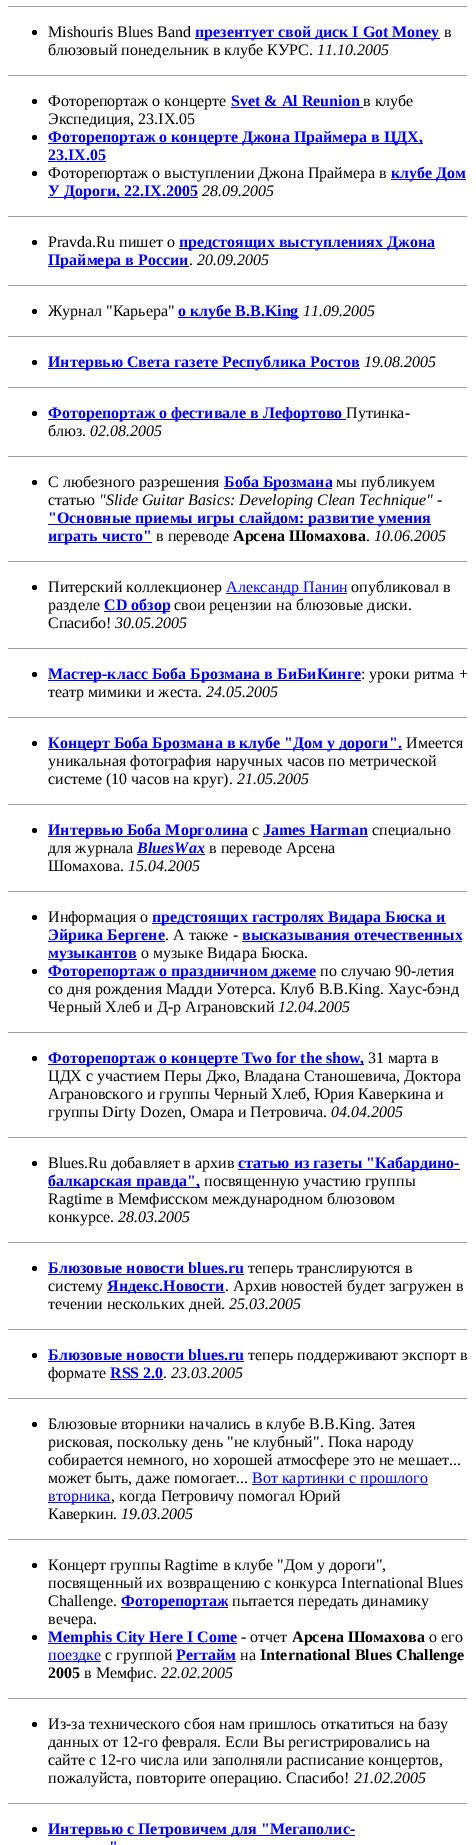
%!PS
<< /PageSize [476 1845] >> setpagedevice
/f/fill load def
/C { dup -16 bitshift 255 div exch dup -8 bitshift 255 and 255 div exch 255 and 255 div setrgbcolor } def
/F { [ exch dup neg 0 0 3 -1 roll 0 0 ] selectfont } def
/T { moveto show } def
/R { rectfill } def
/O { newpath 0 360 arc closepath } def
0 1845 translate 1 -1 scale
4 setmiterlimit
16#FFFFFF C
0 0 476 1845 R
16#9F9F9F C
8 6 460 1 R
16#EEEEEE C
467 6 1 1 R
16#000000 C
34.5 32.5 2.5 O f
/LiberationSerif-Regular 16 F
(Mishouris Blues Band) 48 37 T
16#0000FF C
195 38 245 1 R
/LiberationSerif-Bold 16 F
(презентует свой диск I Got Money) 195 37 T
/LiberationSerif-Regular 16 F
16#000000 C
(в) 444 37 T
(блюзовый понедельник в клубе КУРС.) 48 55 T
/LiberationSerif-Italic 16 F
(11.10.2005) 317 55 T
16#9F9F9F C
8 75 460 1 R
16#EEEEEE C
467 75 1 1 R
16#000000 C
34.5 101.5 2.5 O f
/LiberationSerif-Regular 16 F
(Фоторепортаж о концерте) 48 106 T
/LiberationSerif-Bold 16 F
16#0000FF C
(Svet & Al Reunion) 231 106 T
231 107 132 1 R
/LiberationSerif-Regular 16 F
16#000000 C
(в клубе) 363 106 T
(Экспедиция, 23.IX.05) 48 124 T
34.5 137.5 2.5 O f
16#0000FF C
48 143 375 1 R
/LiberationSerif-Bold 16 F
(Фоторепортаж о концерте Джона Праймера в ЦДХ,) 48 142 T
(23.IX.05) 48 160 T
48 161 58 1 R
16#000000 C
34.5 173.5 2.5 O f
/LiberationSerif-Regular 16 F
(Фоторепортаж о выступлении Джона Праймера в) 48 178 T
16#0000FF C
391 179 75 1 R
/LiberationSerif-Bold 16 F
(клубе Дом) 391 178 T
48 197 150 1 R
(У Дороги, 22.IX.2005) 48 196 T
/LiberationSerif-Italic 16 F
16#000000 C
(28.09.2005) 202 196 T
16#9F9F9F C
8 216 460 1 R
16#EEEEEE C
467 216 1 1 R
16#000000 C
34.5 242.5 2.5 O f
/LiberationSerif-Regular 16 F
(Pravda.Ru пишет о) 48 247 T
16#0000FF C
179 248 256 1 R
/LiberationSerif-Bold 16 F
(предстоящих выступлениях Джона) 179 247 T
48 266 141 1 R
(Праймера в России) 48 265 T
/LiberationSerif-Regular 16 F
16#000000 C
(.) 189 265 T
/LiberationSerif-Italic 16 F
(20.09.2005) 197 265 T
16#9F9F9F C
8 285 460 1 R
16#EEEEEE C
467 285 1 1 R
16#000000 C
34.5 311.5 2.5 O f
/LiberationSerif-Regular 16 F
(Журнал "Карьера") 48 316 T
16#0000FF C
178 317 121 1 R
/LiberationSerif-Bold 16 F
(о клубе B.B.King) 178 316 T
/LiberationSerif-Italic 16 F
16#000000 C
(11.09.2005) 303 316 T
16#9F9F9F C
8 336 460 1 R
16#EEEEEE C
467 336 1 1 R
16#000000 C
34.5 362.5 2.5 O f
16#0000FF C
48 368 312 1 R
/LiberationSerif-Bold 16 F
(Интервью Света газете Республика Ростов) 48 367 T
/LiberationSerif-Italic 16 F
16#000000 C
(19.08.2005) 364 367 T
16#9F9F9F C
8 387 460 1 R
16#EEEEEE C
467 387 1 1 R
16#000000 C
34.5 413.5 2.5 O f
16#0000FF C
48 419 298 1 R
/LiberationSerif-Bold 16 F
(Фоторепортаж о фестивале в Лефортово) 48 418 T
/LiberationSerif-Regular 16 F
16#000000 C
(Путинка-) 346 418 T
(блюз.) 48 436 T
/LiberationSerif-Italic 16 F
(02.08.2005) 90 436 T
16#9F9F9F C
8 456 460 1 R
16#EEEEEE C
467 456 1 1 R
16#000000 C
34.5 482.5 2.5 O f
/LiberationSerif-Regular 16 F
(С любезного разрешения) 48 487 T
16#0000FF C
224 488 108 1 R
/LiberationSerif-Bold 16 F
(Боба Брозмана) 224 487 T
/LiberationSerif-Regular 16 F
16#000000 C
(мы публикуем) 336 487 T
(статью) 48 505 T
/LiberationSerif-Italic 16 F
("Slide Guitar Basics: Developing Clean Technique") 99 505 T
/LiberationSerif-Regular 16 F
(-) 437 505 T
16#0000FF C
48 524 383 1 R
/LiberationSerif-Bold 16 F
("Основные приемы игры слайдом: развитие умения) 48 523 T
48 542 104 1 R
(играть чисто") 48 541 T
/LiberationSerif-Regular 16 F
16#000000 C
(в переводе) 156 541 T
/LiberationSerif-Bold 16 F
(Арсена Шомахова) 233 541 T
/LiberationSerif-Regular 16 F
(.) 366 541 T
/LiberationSerif-Italic 16 F
(10.06.2005) 374 541 T
16#9F9F9F C
8 561 460 1 R
16#EEEEEE C
467 561 1 1 R
16#000000 C
34.5 587.5 2.5 O f
/LiberationSerif-Regular 16 F
(Питерский коллекционер) 48 592 T
16#0000FF C
226 593 121 1 R
(Александр Панин) 226 592 T
16#000000 C
(опубликовал в) 351 592 T
(разделе) 48 610 T
16#0000FF C
104 611 66 1 R
/LiberationSerif-Bold 16 F
(CD обзор) 104 610 T
/LiberationSerif-Regular 16 F
16#000000 C
(свои рецензии на блюзовые диски.) 174 610 T
(Спасибо!) 48 628 T
/LiberationSerif-Italic 16 F
(30.05.2005) 115 628 T
16#9F9F9F C
8 648 460 1 R
16#EEEEEE C
467 648 1 1 R
16#000000 C
34.5 674.5 2.5 O f
16#0000FF C
48 680 313 1 R
/LiberationSerif-Bold 16 F
(Мастер-класс Боба Брозмана в БиБиКинге) 48 679 T
/LiberationSerif-Regular 16 F
16#000000 C
(: уроки ритма +) 361 679 T
(театр мимики и жеста.) 48 697 T
/LiberationSerif-Italic 16 F
(24.05.2005) 206 697 T
16#9F9F9F C
8 717 460 1 R
16#EEEEEE C
467 717 1 1 R
16#000000 C
34.5 743.5 2.5 O f
16#0000FF C
48 749 354 1 R
/LiberationSerif-Bold 16 F
(Концерт Боба Брозмана в клубе "Дом у дороги".) 48 748 T
/LiberationSerif-Regular 16 F
16#000000 C
(Имеется) 406 748 T
(уникальная фотография наручных часов по метрической) 48 766 T
(системе \(10 часов на круг\).) 48 784 T
/LiberationSerif-Italic 16 F
(21.05.2005) 237 784 T
16#9F9F9F C
8 804 460 1 R
16#EEEEEE C
467 804 1 1 R
16#000000 C
34.5 830.5 2.5 O f
16#0000FF C
48 836 200 1 R
/LiberationSerif-Bold 16 F
(Интервью Боба Морголина) 48 835 T
/LiberationSerif-Regular 16 F
16#000000 C
(с) 252 835 T
/LiberationSerif-Bold 16 F
16#0000FF C
(James Harman) 263 835 T
263 836 105 1 R
/LiberationSerif-Regular 16 F
16#000000 C
(специально) 372 835 T
(для журнала) 48 853 T
/LiberationSerif-BoldItalic 16 F
16#0000FF C
(BluesWax) 137 853 T
137 854 68 1 R
/LiberationSerif-Regular 16 F
16#000000 C
(в переводе Арсена) 209 853 T
(Шомахова.) 48 871 T
/LiberationSerif-Italic 16 F
(15.04.2005) 128 871 T
16#9F9F9F C
8 891 460 1 R
16#EEEEEE C
467 891 1 1 R
16#000000 C
34.5 917.5 2.5 O f
/LiberationSerif-Regular 16 F
(Информация о) 48 922 T
16#0000FF C
152 923 294 1 R
/LiberationSerif-Bold 16 F
(предстоящих гастролях Видара Бюска и) 152 922 T
48 941 117 1 R
(Эйрика Бергене) 48 940 T
/LiberationSerif-Regular 16 F
16#000000 C
(. А также -) 165 940 T
/LiberationSerif-Bold 16 F
16#0000FF C
(высказывания отечественных) 242 940 T
242 941 220 1 R
48 959 89 1 R
(музыкантов) 48 958 T
/LiberationSerif-Regular 16 F
16#000000 C
(о музыке Видара Бюска.) 141 958 T
34.5 971.5 2.5 O f
16#0000FF C
48 977 268 1 R
/LiberationSerif-Bold 16 F
(Фоторепортаж о праздничном джеме) 48 976 T
/LiberationSerif-Regular 16 F
16#000000 C
(по случаю 90-летия) 320 976 T
(со дня рождения Мадди Уотерса. Клуб B.B.King. Хаус-бэнд) 48 994 T
(Черный Хлеб и Д-р Аграновский) 48 1012 T
/LiberationSerif-Italic 16 F
(12.04.2005) 278 1012 T
16#9F9F9F C
8 1032 460 1 R
16#EEEEEE C
467 1032 1 1 R
16#000000 C
34.5 1058.5 2.5 O f
16#0000FF C
48 1064 316 1 R
/LiberationSerif-Bold 16 F
(Фоторепортаж о концерте Two for the show,) 48 1063 T
/LiberationSerif-Regular 16 F
16#000000 C
(31 марта в) 368 1063 T
(ЦДХ с участием Перы Джо, Владана Станошевича, Доктора) 48 1081 T
(Аграновского и группы Черный Хлеб, Юрия Каверкина и) 48 1099 T
(группы Dirty Dozen, Омара и Петровича.) 48 1117 T
/LiberationSerif-Italic 16 F
(04.04.2005) 331 1117 T
16#9F9F9F C
8 1137 460 1 R
16#EEEEEE C
467 1137 1 1 R
16#000000 C
34.5 1163.5 2.5 O f
/LiberationSerif-Regular 16 F
(Blues.Ru добавляет в архив) 48 1168 T
16#0000FF C
238 1169 222 1 R
/LiberationSerif-Bold 16 F
(статью из газеты "Кабардино-) 238 1168 T
48 1187 152 1 R
(балкарская правда",) 48 1186 T
/LiberationSerif-Regular 16 F
16#000000 C
(посвященную участию группы) 204 1186 T
(Ragtime в Мемфисском международном блюзовом) 48 1204 T
(конкурсе.) 48 1222 T
/LiberationSerif-Italic 16 F
(28.03.2005) 118 1222 T
16#9F9F9F C
8 1242 460 1 R
16#EEEEEE C
467 1242 1 1 R
16#000000 C
34.5 1268.5 2.5 O f
/LiberationSerif-Bold 16 F
16#0000FF C
(Блюзовые новости blues.ru) 48 1273 T
48 1274 196 1 R
/LiberationSerif-Regular 16 F
16#000000 C
(теперь транслируются в) 248 1273 T
(систему) 48 1291 T
16#0000FF C
107 1292 118 1 R
/LiberationSerif-Bold 16 F
(Яндекс.Новости) 107 1291 T
/LiberationSerif-Regular 16 F
16#000000 C
(. Архив новостей будет загружен в) 225 1291 T
(течении нескольких дней.) 48 1309 T
/LiberationSerif-Italic 16 F
(25.03.2005) 229 1309 T
16#9F9F9F C
8 1329 460 1 R
16#EEEEEE C
467 1329 1 1 R
16#000000 C
34.5 1355.5 2.5 O f
/LiberationSerif-Bold 16 F
16#0000FF C
(Блюзовые новости blues.ru) 48 1360 T
48 1361 196 1 R
/LiberationSerif-Regular 16 F
16#000000 C
(теперь поддерживают экспорт в) 248 1360 T
(формате) 48 1378 T
/LiberationSerif-Bold 16 F
16#0000FF C
(RSS 2.0) 110 1378 T
110 1379 53 1 R
/LiberationSerif-Regular 16 F
16#000000 C
(.) 163 1378 T
/LiberationSerif-Italic 16 F
(23.03.2005) 171 1378 T
16#9F9F9F C
8 1398 460 1 R
16#EEEEEE C
467 1398 1 1 R
16#000000 C
34.5 1424.5 2.5 O f
/LiberationSerif-Regular 16 F
(Блюзовые вторники начались в клубе B.B.King. Затея) 48 1429 T
(рисковая, поскольку день "не клубный". Пока народу) 48 1447 T
(собирается немного, но хорошей атмосфере это не мешает...) 48 1465 T
(может быть, даже помогает...) 48 1483 T
16#0000FF C
252 1484 176 1 R
(Вот картинки с прошлого) 252 1483 T
48 1502 63 1 R
(вторника) 48 1501 T
16#000000 C
(, когда Петровичу помогал Юрий) 111 1501 T
(Каверкин.) 48 1519 T
/LiberationSerif-Italic 16 F
(19.03.2005) 121 1519 T
16#9F9F9F C
8 1539 460 1 R
16#EEEEEE C
467 1539 1 1 R
16#000000 C
34.5 1565.5 2.5 O f
/LiberationSerif-Regular 16 F
(Концерт группы Ragtime в клубе "Дом у дороги",) 48 1570 T
(посвященный их возвращению с конкурса International Blues) 48 1588 T
(Challenge.) 48 1606 T
16#0000FF C
121 1607 107 1 R
/LiberationSerif-Bold 16 F
(Фоторепортаж) 121 1606 T
/LiberationSerif-Regular 16 F
16#000000 C
(пытается передать динамику) 232 1606 T
(вечера.) 48 1624 T
34.5 1637.5 2.5 O f
16#0000FF C
48 1643 189 1 R
/LiberationSerif-Bold 16 F
(Memphis City Here I Come) 48 1642 T
/LiberationSerif-Regular 16 F
16#000000 C
(- отчет) 241 1642 T
/LiberationSerif-Bold 16 F
(Арсена Шомахова) 292 1642 T
/LiberationSerif-Regular 16 F
(о его) 429 1642 T
16#0000FF C
48 1661 53 1 R
(поездке) 48 1660 T
16#000000 C
(с группой) 105 1660 T
/LiberationSerif-Bold 16 F
16#0000FF C
(Регтайм) 176 1660 T
176 1661 60 1 R
/LiberationSerif-Regular 16 F
16#000000 C
(на) 240 1660 T
/LiberationSerif-Bold 16 F
(International Blues Challenge) 260 1660 T
(2005) 48 1678 T
/LiberationSerif-Regular 16 F
(в Мемфис.) 84 1678 T
/LiberationSerif-Italic 16 F
(22.02.2005) 161 1678 T
16#9F9F9F C
8 1698 460 1 R
16#EEEEEE C
467 1698 1 1 R
16#000000 C
34.5 1724.5 2.5 O f
/LiberationSerif-Regular 16 F
(Из-за технического сбоя нам пришлось откатиться на базу) 48 1729 T
(данных от 12-го февраля. Если Вы регистрировались на) 48 1747 T
(сайте с 12-го числа или заполняли расписание концертов,) 48 1765 T
(пожалуйста, повторите операцию. Спасибо!) 48 1783 T
/LiberationSerif-Italic 16 F
(21.02.2005) 354 1783 T
16#9F9F9F C
8 1803 460 1 R
16#EEEEEE C
467 1803 1 1 R
16#000000 C
34.5 1829.5 2.5 O f
16#0000FF C
48 1835 307 1 R
/LiberationSerif-Bold 16 F
(Интервью с Петровичем для "Мегаполис-) 48 1834 T
(") 109 1852 T
showpage
